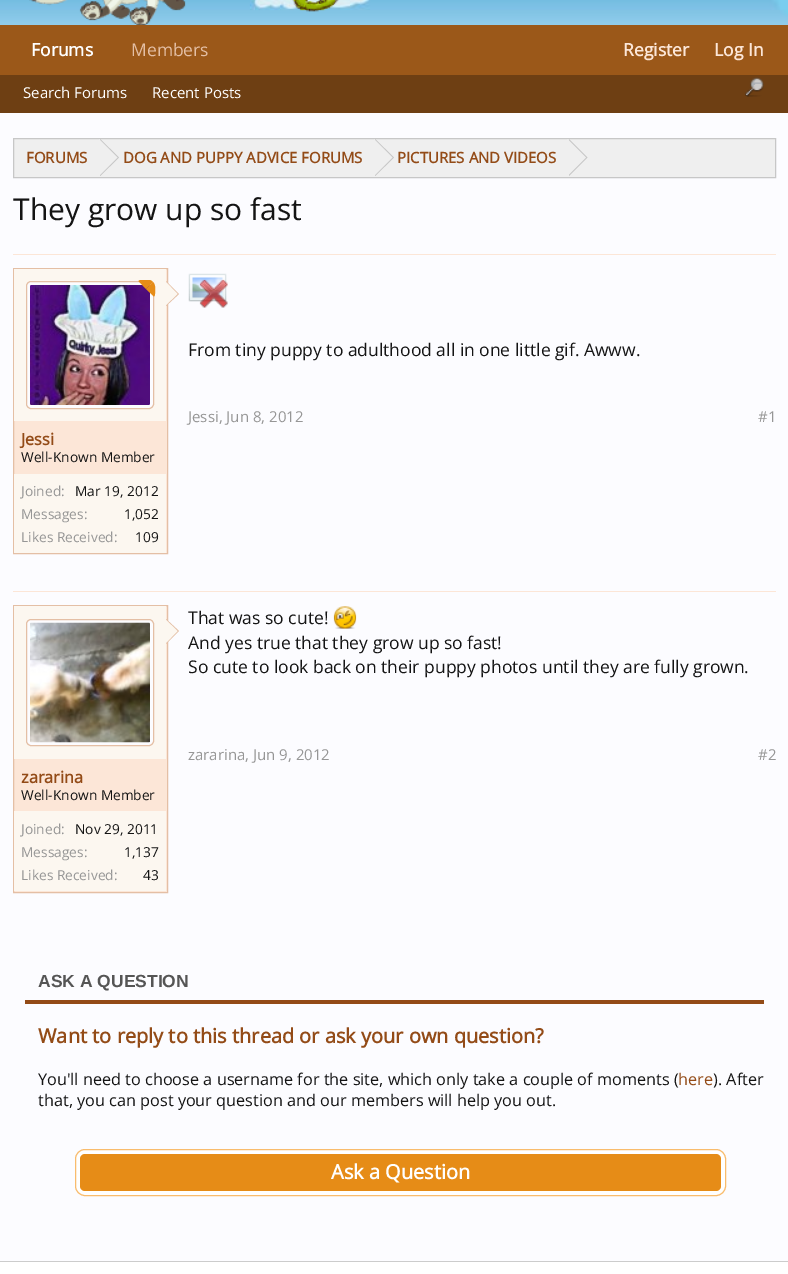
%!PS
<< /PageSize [788 1274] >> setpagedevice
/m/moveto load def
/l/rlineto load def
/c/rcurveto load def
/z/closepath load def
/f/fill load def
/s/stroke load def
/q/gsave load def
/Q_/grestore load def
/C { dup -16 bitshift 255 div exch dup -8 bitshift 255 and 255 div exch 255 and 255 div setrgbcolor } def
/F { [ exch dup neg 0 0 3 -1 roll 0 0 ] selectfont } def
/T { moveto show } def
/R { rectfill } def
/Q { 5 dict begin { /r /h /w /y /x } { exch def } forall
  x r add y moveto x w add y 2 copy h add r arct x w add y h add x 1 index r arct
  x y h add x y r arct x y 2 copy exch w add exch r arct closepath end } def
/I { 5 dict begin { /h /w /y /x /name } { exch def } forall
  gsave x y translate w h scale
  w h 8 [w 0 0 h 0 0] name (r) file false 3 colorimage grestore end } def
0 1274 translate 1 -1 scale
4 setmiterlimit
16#FCFCFF C
0 0 788 1274 R
(1.rgb) 0 0 788 25 I
(2.rgb) 29 0 310 25 I
16#9B5819 C
0 25 788 50 R
/OpenSans-Regular 17.5 F
16#E4BFA5 C
(Members) 131 56 T
/OpenSans-Bold 17.5 F
16#FFFFFF C
(Forums) 31 56 T
16#6E3F13 C
0 75 788 38 R
/OpenSans-Regular 15 F
16#FFFFFF C
(Search Forums) 23 98 T
(Recent Posts) 152 98 T
/OpenSans-Bold 17.5 F
16#FCE6D7 C
(Register) 623 56 T
(Log In) 714 56 T
(3.rgb) 745 77 19 20 I
16#EFEFEF C
13.5 138.5 m 762 0 l 0 39 l -762 0 l z q f Q_
16#C7C7C7 C
s
/OpenSans-Bold 15 F
16#934B17 C
(FORUMS) 26 163 T
16#C7C7C7 C
100 176 m 0 -37 l 19 18.5 l z f
16#EFEFEF C
99 176 m 0 -37 l 18.5 18.5 l z f
16#934B17 C
(DOG AND PUPPY ADVICE FORUMS) 123 163 T
16#C7C7C7 C
375 176 m 0 -37 l 19 18.5 l z f
16#EFEFEF C
374 176 m 0 -37 l 18.5 18.5 l z f
16#934B17 C
(PICTURES AND VIDEOS) 397 163 T
16#C7C7C7 C
569 176 m 0 -37 l 18.5 18.5 l z f
16#EFEFEF C
567.5 176 m 0 -37 l 18.5 18.5 l z f
q
13 190 763 39 rectclip
/OpenSans-Regular 30 F
16#141414 C
(They grow up so fast) 13 220 T
Q_
16#FCE6D7 C
13 254 763 1 R
(4.rgb) 188 273 40 35 I
/OpenSans-Regular 17.5 F
16#141414 C
(From tiny puppy to adulthood all in one little gif. Awww.) 188 356 T
/OpenSans-Regular 15 F
16#969696 C
(Jessi, Jun 8, 2012) 188 422 T
(#1) 758 422 T
16#FCE6D7 C
13.5 268.5 m 154 0 l 0 285 l -154 0 l z q f Q_
16#E4BFA5 C
s
16#FCF7F0 C
14 269 152 152 R
16#FCFCFF C
26.5 281.5 127 127 4.5 Q q f Q_
16#E4BFA5 C
s
(5.rgb) 30 285 120 120 I
16#E68C17 C
141 280 m -1 0 -2 .5 -2.5 1 c 7.5 8 l 7 -7 l -1 -1 -2.5 -2 -4 -2 c z f
155 294 m 0 -4 1 -9 -2 -12 c -7 7 l 8 7.5 l .5 -.5 1 -1.5 1 -2.5 c z f
16#E4BFA5 C
166 306 m 0 -25 l 13 13 l z f
16#FCF7F0 C
165 306 m 0 -25 l 12.5 13 l z f
/OpenSans-Bold 16.25 F
16#934B17 C
(Jessi) 21 445 T
/OpenSans-Regular 13.75 F
16#141414 C
(Well-Known Member) 21 462 T
16#FCF7F0 C
14 474 152 79 R
16#969696 C
(Joined:) 21 496 T
16#141414 C
(Mar 19, 2012) 75 496 T
16#969696 C
(Messages:) 21 519 T
16#141414 C
(1,052) 124 519 T
16#969696 C
(Likes Received:) 21 542 T
16#141414 C
(109) 135 542 T
16#FCE6D7 C
13 591 763 1 R
/OpenSans-Regular 17.5 F
16#141414 C
(That was so cute!) 188 624 T
(6.rgb) 333 606 24 23 I
(And yes true that they grow up so fast!) 188 649 T
(So cute to look back on their puppy photos until they are fully grown.) 188 673 T
/OpenSans-Regular 15 F
16#969696 C
(zararina, Jun 9, 2012) 188 760 T
(#2) 758 760 T
16#FCE6D7 C
13.5 605.5 m 154 0 l 0 287 l -154 0 l z q f Q_
16#E4BFA5 C
s
16#FCF7F0 C
14 606 152 153 R
16#FCFCFF C
26.5 619.5 127 126 4.5 Q q f Q_
16#E4BFA5 C
s
(7.rgb) 30 622 120 121 I
166 644 m 0 -25 l 13 12 l z f
16#FCF7F0 C
165 644 m 0 -25 l 12.5 12 l z f
/OpenSans-Bold 16.25 F
16#934B17 C
(zararina) 21 783 T
/OpenSans-Regular 13.75 F
16#141414 C
(Well-Known Member) 21 800 T
16#FCF7F0 C
14 811 152 80 R
16#969696 C
(Joined:) 21 834 T
16#141414 C
(Nov 29, 2011) 75 834 T
16#969696 C
(Messages:) 21 857 T
16#141414 C
(1,137) 124 857 T
16#969696 C
(Likes Received:) 21 880 T
16#141414 C
(43) 143 880 T
16#934B17 C
25 1000 739 4 R
/LiberationSans-Bold 17.5 F
16#555555 C
(ASK A QUESTION) 38 987 T
/OpenSans-Bold 20 F
16#934B17 C
(Want to reply to this thread or ask your own question?) 38 1043 T
/OpenSans-Regular 16.25 F
16#141414 C
(You'll need to choose a username for the site, which only take a couple of moments \() 38 1085 T
16#934B17 C
(here) 678 1085 T
16#141414 C
(\). After) 713 1085 T
(that, you can post your question and our members will help you out.) 38 1106 T
16#FFFFFF C
75.5 1149.5 650 46 9.5 Q q f Q_
16#F9BC6D C
s
16#E68C17 C
80 1154 641 37 5 Q f
/OpenSans-Bold 20 F
16#FFFFFF C
(Ask a Question) 331 1179 T
0 1262 788 12 R
16#CCCCCC C
0 1261 788 1 R
showpage
